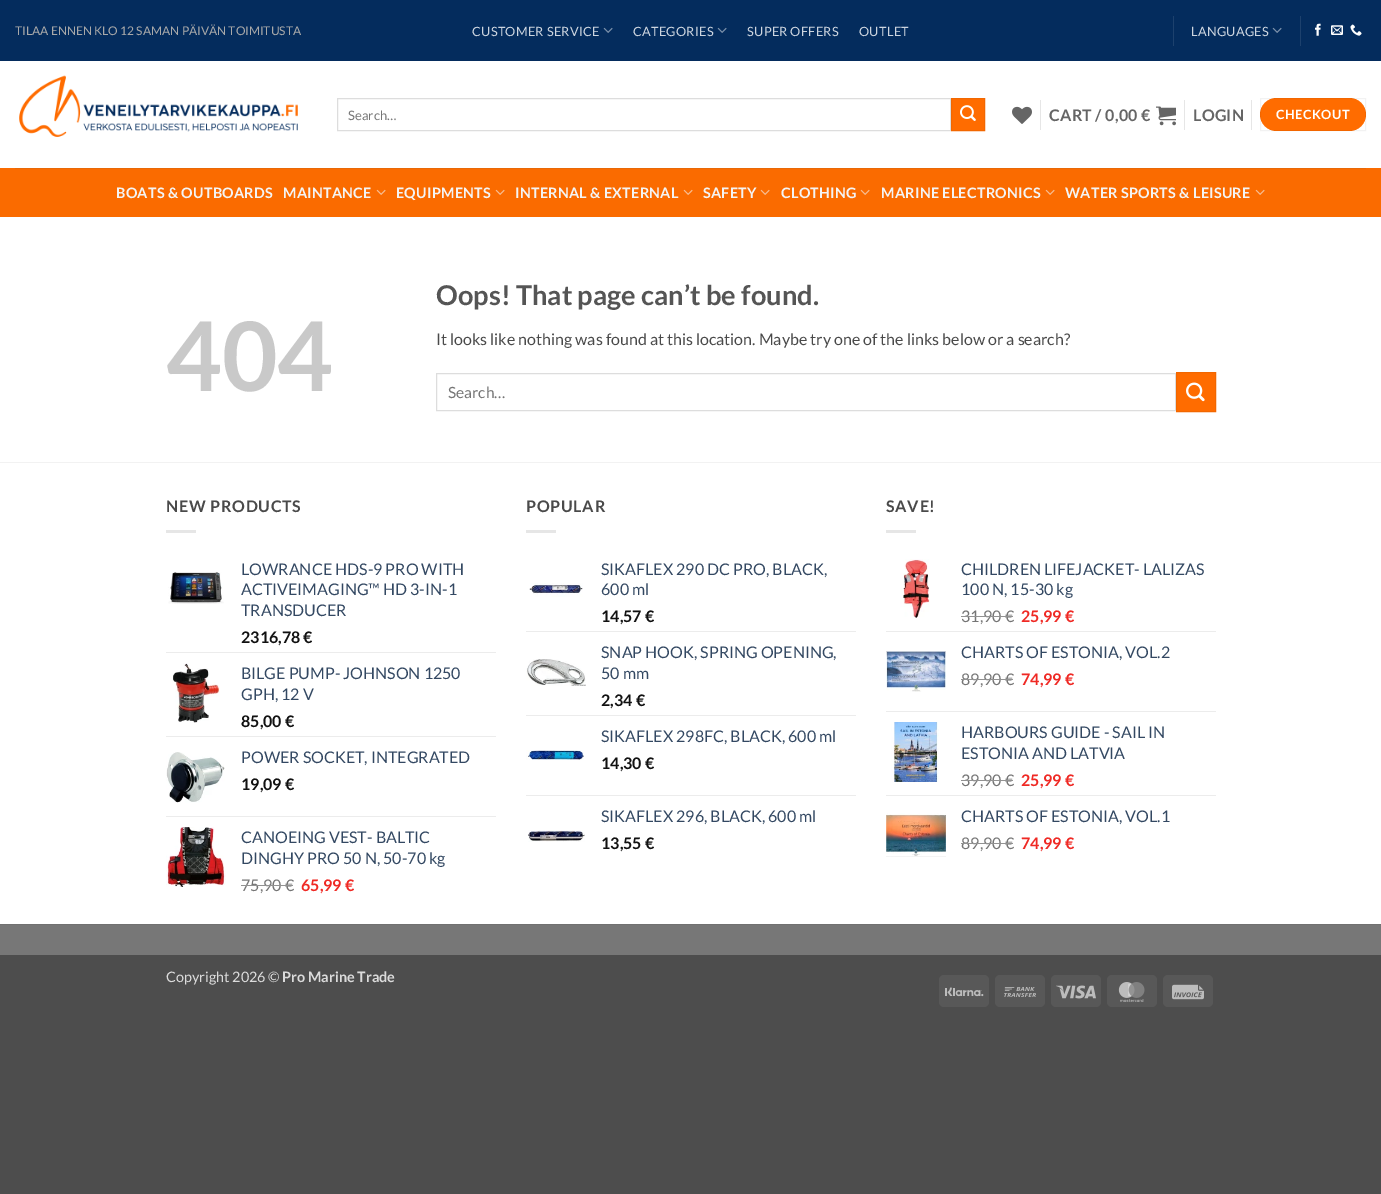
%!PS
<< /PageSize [1381 1194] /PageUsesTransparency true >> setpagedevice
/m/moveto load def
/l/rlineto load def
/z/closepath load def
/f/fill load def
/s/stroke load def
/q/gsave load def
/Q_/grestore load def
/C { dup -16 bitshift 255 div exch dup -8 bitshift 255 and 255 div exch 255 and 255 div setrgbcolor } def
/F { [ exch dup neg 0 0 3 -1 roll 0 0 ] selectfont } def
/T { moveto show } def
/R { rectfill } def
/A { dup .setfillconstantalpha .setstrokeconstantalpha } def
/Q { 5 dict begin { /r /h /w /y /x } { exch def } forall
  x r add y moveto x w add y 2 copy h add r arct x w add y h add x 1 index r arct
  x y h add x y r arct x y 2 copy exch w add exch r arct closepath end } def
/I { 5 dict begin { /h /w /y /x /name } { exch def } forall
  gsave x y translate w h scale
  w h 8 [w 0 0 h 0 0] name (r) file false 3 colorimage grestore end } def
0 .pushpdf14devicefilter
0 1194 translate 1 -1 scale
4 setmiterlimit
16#4D4D4D C
0 0 1381 1194 R
16#FFFFFF C
0 61 1381 863 R
16#042C5D C
0 0 1381 61 R
/Lato-Regular 12 F
16#A9A9A9 C
(TILAA ENNEN KLO 12 SAMAN PÄIVÄN TOIMITUSTA) 15 35 T
/Lato-Regular 12.75 F
16#CDD5DF C
472 36 m .25 0 (CUSTOMER SERVICE) ashow
(1.rgb) 603 27 10 6 I
633 36 m .25 0 (CATEGORIES) ashow
(1.rgb) 717 27 10 6 I
747 36 m .25 0 (SUPER OFFERS) ashow
859 36 m .25 0 (OUTLET) ashow
16#1D416D C
1173 16 1 30 R
16#CDD5DF C
1191 36 m .25 0 (LANGUAGES) ashow
(1.rgb) 1272 27 10 6 I
16#1D416D C
1300 16 1 30 R
(2.rgb) 1315 23 6 13 I
(3.rgb) 1331 25 12 10 I
(4.rgb) 1350 24 12 12 I
(5.rgb) 19 75 279 62 I
16#DDDDDD C
337.5 98.5 613 32 rectstroke
/Lato-Regular 13 F
16#757575 C
(Search…) 348 120 T
16#FF6C00 C
951.5 98.5 m 33 0 l 0 32 l -33 0 l z q f Q_
16#F26700 C
s
(6.rgb) 960 105 16 16 I
(7.rgb) 1012 106 20 18 I
16#E6E6E6 C
1040 100 1 30 R
/Lato-Bold 16 F
16#656565 C
1049 121 m .25 0 (CART / 0,00 €) ashow
(8.rgb) 1156 106 20 20 I
16#E6E6E6 C
1184 100 1 30 R
16#656565 C
1193 121 m .25 0 (LOGIN) ashow
16#E6E6E6 C
1251 100 1 30 R
16#FF6C00 C
1260 98 106 33 16.5 Q f
0.05 A
16#000000 C
1260.5 98.5 105 32 rectstroke
/Lato-Bold 12.75 F
1 A
16#FFFFFF C
1276 119 m .5 0 (CHECKOUT) ashow
16#FA6B00 C
0 168 1381 49 R
16#E86807 C
15 168 1351 1 R
/Lato-Bold 14.4 F
16#F4F4F4 C
116 198 m .25 0 (BOATS & OUTBOARDS) ashow
283 198 m .25 0 (MAINTANCE) ashow
(9.rgb) 376 189 10 6 I
396 198 m .25 0 (EQUIPMENTS) ashow
(9.rgb) 495 189 10 6 I
515 198 m .25 0 (INTERNAL & EXTERNAL) ashow
(9.rgb) 683 189 10 6 I
703 198 m .25 0 (SAFETY) ashow
(9.rgb) 760 189 10 6 I
781 198 m .25 0 (CLOTHING) ashow
(9.rgb) 860 189 10 6 I
881 198 m .25 0 (MARINE ELECTRONICS) ashow
(9.rgb) 1045 189 10 6 I
1065 198 m .25 0 (WATER SPORTS & LEISURE) ashow
(9.rgb) 1255 189 10 6 I
/Lato-Bold 96 F
16#C9C9C9 C
(404) 166 391 T
/Lato-Bold 27.25 F
16#555555 C
(Oops! That page can’t be found.) 436 305 T
/Lato-Regular 16 F
16#4A4A4A C
(It looks like nothing was found at this location. Maybe try one of the links below or a search?) 436 345 T
16#DDDDDD C
436.5 373.5 739 37 rectstroke
/Lato-Regular 15.5 F
16#757575 C
(Search…) 448 398 T
16#FF6C00 C
1176.5 372.5 m 39 0 l 0 39 l -39 0 l z q f Q_
16#F26700 C
s
(10.rgb) 1186 382 19 20 I
16#F2F2F2 C
0 462 1381 1 R
/Lato-Bold 16 F
16#4A4A4A C
166 512 m .75 0 (NEW PRODUCTS) ashow
16#E6E6E6 C
166 530 30 3 R
/Lato-Regular 16 F
16#334862 C
(LOWRANCE HDS-9 PRO WITH) 241 575 T
(11.rgb) 168 572 56 32 I
(ACTIVEIMAGING™ HD 3-IN-1) 241 595 T
(TRANSDUCER) 241 616 T
/Lato-Bold 16 F
16#111111 C
(2316,78 €) 241 643 T
16#ECECEC C
166 652 330 1 R
(12.rgb) 172 663 48 60 I
/Lato-Regular 16 F
16#334862 C
(BILGE PUMP- JOHNSON 1250) 241 679 T
(GPH, 12 V) 241 700 T
/Lato-Bold 16 F
16#111111 C
(85,00 €) 241 727 T
16#ECECEC C
166 736 330 1 R
(13.rgb) 166 752 59 51 I
/Lato-Regular 16 F
16#334862 C
(POWER SOCKET, INTEGRATED) 241 763 T
/Lato-Bold 16 F
16#111111 C
(19,09 €) 241 790 T
16#ECECEC C
166 816 330 1 R
(14.rgb) 166 827 60 60 I
/Lato-Regular 16 F
16#334862 C
(CANOEING VEST- BALTIC) 241 843 T
(DINGHY PRO 50 N, 50-70 kg) 241 864 T
16#757575 C
(75,90 €) 241 891 T
16#929292 C
241 885 52 1 R
/Lato-Bold 16 F
16#EF2924 C
(65,99 €) 301 891 T
16#4A4A4A C
526 512 m .75 0 (POPULAR) ashow
16#E6E6E6 C
526 530 30 3 R
/Lato-Regular 16 F
16#334862 C
(SIKAFLEX 290 DC PRO, BLACK,) 601 575 T
(15.rgb) 529 583 54 14 I
(600 ml) 601 595 T
/Lato-Bold 16 F
16#111111 C
(14,57 €) 601 622 T
16#ECECEC C
526 631 330 1 R
/Lato-Regular 16 F
16#334862 C
(SNAP HOOK, SPRING OPENING,) 601 658 T
(16.rgb) 526 659 60 27 I
(50 mm) 601 679 T
/Lato-Bold 16 F
16#111111 C
(2,34 €) 601 706 T
16#ECECEC C
526 715 330 1 R
/Lato-Regular 16 F
16#334862 C
(SIKAFLEX 298FC, BLACK, 600 ml) 601 742 T
(17.rgb) 526 750 58 10 I
/Lato-Bold 16 F
16#111111 C
(14,30 €) 601 769 T
16#ECECEC C
526 795 330 1 R
/Lato-Regular 16 F
16#334862 C
(SIKAFLEX 296, BLACK, 600 ml) 601 822 T
(18.rgb) 528 830 57 12 I
/Lato-Bold 16 F
16#111111 C
(13,55 €) 601 849 T
16#4A4A4A C
886 512 m .75 0 (SAVE!) ashow
16#E6E6E6 C
886 530 30 3 R
(19.rgb) 900 559 30 59 I
/Lato-Regular 16 F
16#334862 C
(CHILDREN LIFEJACKET- LALIZAS) 961 575 T
(100 N, 15-30 kg) 961 595 T
16#757575 C
(31,90 €) 961 622 T
16#929292 C
961 616 52 1 R
/Lato-Bold 16 F
16#EF2924 C
(25,99 €) 1021 622 T
16#ECECEC C
886 631 330 1 R
(20.rgb) 886 651 60 41 I
/Lato-Regular 16 F
16#334862 C
(CHARTS OF ESTONIA, VOL.2) 961 658 T
16#757575 C
(89,90 €) 961 685 T
16#929292 C
961 679 52 1 R
/Lato-Bold 16 F
16#EF2924 C
(74,99 €) 1021 685 T
16#ECECEC C
886 711 330 1 R
(21.rgb) 891 722 48 60 I
/Lato-Regular 16 F
16#334862 C
(HARBOURS GUIDE - SAIL IN) 961 738 T
(ESTONIA AND LATVIA) 961 759 T
16#757575 C
(39,90 €) 961 786 T
16#929292 C
961 780 52 1 R
/Lato-Bold 16 F
16#EF2924 C
(25,99 €) 1021 786 T
16#ECECEC C
886 795 330 1 R
(22.rgb) 886 813 60 44 I
/Lato-Regular 16 F
16#334862 C
(CHARTS OF ESTONIA, VOL.1) 961 822 T
16#757575 C
(89,90 €) 961 849 T
16#929292 C
961 843 52 1 R
/Lato-Bold 16 F
16#EF2924 C
(74,99 €) 1021 849 T
16#777777 C
0 925 1381 30 R
16#717171 C
0 924 1381 1 R
/Lato-Regular 14.4 F
16#DBDBDB C
(Copyright 2026 ©) 166 982 T
/Lato-Bold 14.4 F
(Pro Marine Trade) 282 982 T
16#585858 C
939 975 50 32 5 Q f
(23.rgb) 945 987 39 10 I
995 975 50 32 5 Q f
(24.rgb) 1004 987 32 10 I
1051 975 50 32 5 Q f
(25.rgb) 1056 985 40 14 I
1107 975 50 32 5 Q f
(26.rgb) 1118 982 27 20 I
1163 975 50 32 5 Q f
(27.rgb) 1172 984 32 16 I
.poppdf14devicefilter showpage
